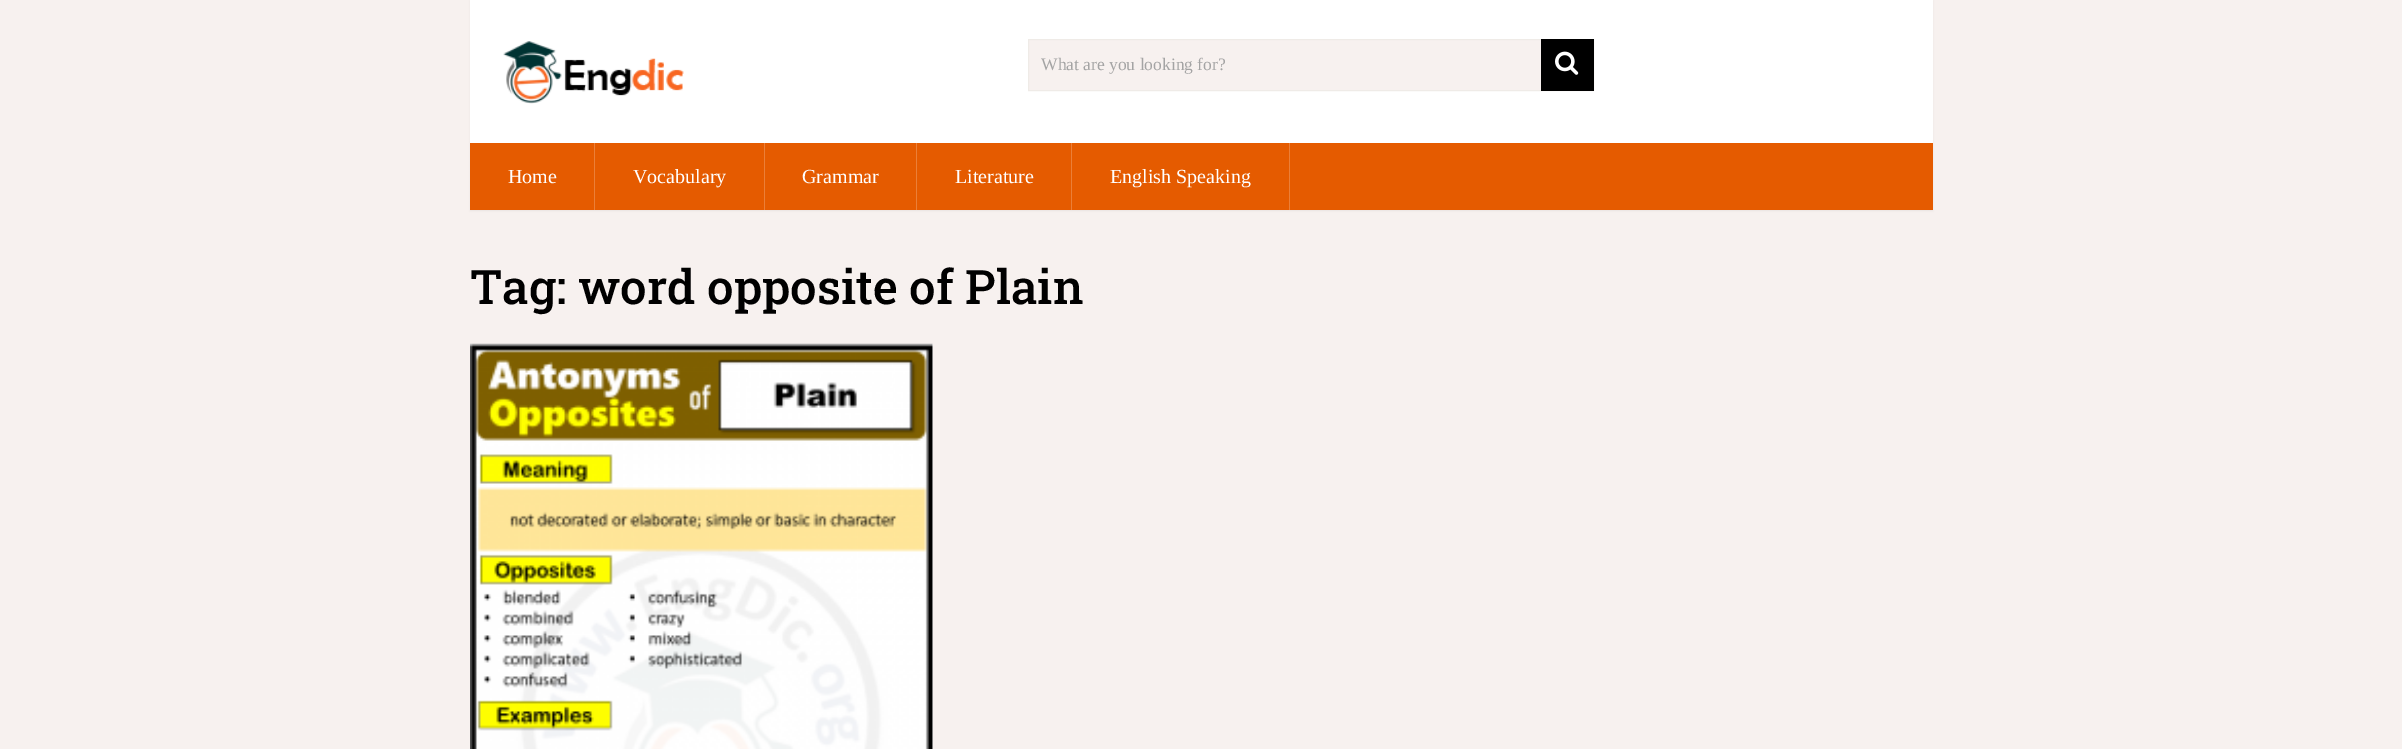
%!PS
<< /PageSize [2402 749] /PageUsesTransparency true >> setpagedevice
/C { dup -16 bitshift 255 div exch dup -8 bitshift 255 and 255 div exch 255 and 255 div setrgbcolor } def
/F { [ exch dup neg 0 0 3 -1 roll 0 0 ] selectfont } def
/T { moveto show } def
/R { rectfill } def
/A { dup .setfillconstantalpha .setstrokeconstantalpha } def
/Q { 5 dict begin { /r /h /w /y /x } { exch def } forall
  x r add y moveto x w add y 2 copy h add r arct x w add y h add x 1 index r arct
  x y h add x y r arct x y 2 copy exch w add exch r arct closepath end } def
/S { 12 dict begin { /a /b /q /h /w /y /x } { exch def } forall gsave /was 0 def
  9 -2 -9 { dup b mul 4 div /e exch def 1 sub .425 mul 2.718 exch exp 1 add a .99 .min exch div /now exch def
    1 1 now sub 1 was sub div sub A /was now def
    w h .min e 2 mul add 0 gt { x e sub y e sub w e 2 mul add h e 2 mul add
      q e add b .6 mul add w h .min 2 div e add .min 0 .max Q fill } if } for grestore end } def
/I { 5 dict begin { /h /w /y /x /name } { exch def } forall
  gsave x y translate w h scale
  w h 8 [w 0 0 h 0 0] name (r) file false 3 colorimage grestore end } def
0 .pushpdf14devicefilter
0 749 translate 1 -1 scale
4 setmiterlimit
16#F7F1EF C
0 0 2402 749 R
16#000000 C
470 1 1463 210 0 1 .05 S
16#FFFFFF C
470 0 1463 143 R
(1.rgb) 503 41 181 63 I
16#F7F1EF C
1029 40 512 50 R
16#EFEBE7 C
1028.5 39.5 565 51 rectstroke
/LiberationSerif-Regular 17.5 F
16#A4A4A4 C
(What are you looking for?) 1041 70 T
16#000000 C
1541 39 53 52 R
(2.rgb) 1555 51 24 24 I
16#E55B00 C
470 143 1463 67 R
16#EB7F38 C
594 143 1 67 R
/LiberationSerif-Regular 20 F
16#FFFFFF C
(Home) 508 183 T
16#EB7F38 C
764 143 1 67 R
16#FFFFFF C
(Vocabulary) 633 183 T
16#EB7F38 C
916 143 1 67 R
16#FFFFFF C
(Grammar) 802 183 T
16#EB7F38 C
1071 143 1 67 R
16#FFFFFF C
(Literature) 955 183 T
16#EB7F38 C
1289 143 1 67 R
16#FFFFFF C
(English Speaking) 1110 183 T
/RobotoSlab-Medium 47.5 F
16#000000 C
(Tag: word opposite of Plain) 470 304 T
16#FFFFFF C
932 344 1 405 R
(3.rgb) 470 343 463 406 I
.poppdf14devicefilter showpage
